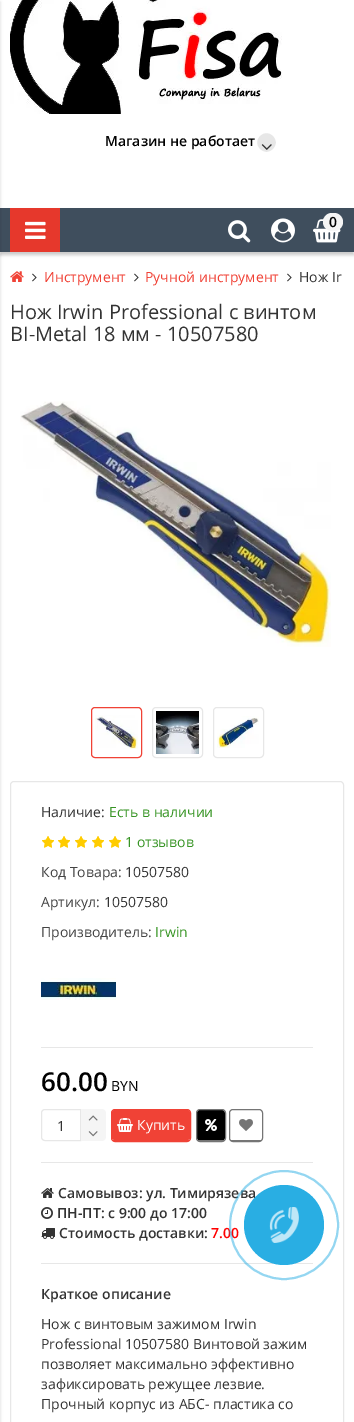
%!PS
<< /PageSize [354 1422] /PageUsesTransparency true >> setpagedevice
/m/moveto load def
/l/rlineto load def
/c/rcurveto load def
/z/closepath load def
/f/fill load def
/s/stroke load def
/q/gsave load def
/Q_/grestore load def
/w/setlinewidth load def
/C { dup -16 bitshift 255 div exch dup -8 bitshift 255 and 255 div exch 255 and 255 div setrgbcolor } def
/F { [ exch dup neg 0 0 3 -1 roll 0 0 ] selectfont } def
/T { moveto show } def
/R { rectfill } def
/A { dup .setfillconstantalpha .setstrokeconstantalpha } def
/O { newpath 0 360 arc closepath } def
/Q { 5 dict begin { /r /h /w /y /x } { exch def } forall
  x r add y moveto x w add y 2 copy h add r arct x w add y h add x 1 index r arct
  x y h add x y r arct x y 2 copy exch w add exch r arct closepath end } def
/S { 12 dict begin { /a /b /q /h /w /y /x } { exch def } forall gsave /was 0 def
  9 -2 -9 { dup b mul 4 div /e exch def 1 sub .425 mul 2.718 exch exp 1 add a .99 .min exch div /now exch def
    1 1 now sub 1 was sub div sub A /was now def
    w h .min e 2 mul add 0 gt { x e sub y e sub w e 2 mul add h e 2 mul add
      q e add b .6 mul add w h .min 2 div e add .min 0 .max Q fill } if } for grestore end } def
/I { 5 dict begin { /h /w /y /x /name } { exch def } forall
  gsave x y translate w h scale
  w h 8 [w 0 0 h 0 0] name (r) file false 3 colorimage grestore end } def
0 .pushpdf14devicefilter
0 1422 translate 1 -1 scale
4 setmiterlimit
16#FFFFFF C
0 0 354 1422 R
(1.rgb) 10 0 272 114 I
/OpenSans-SemiBold 14 F
16#000000 C
(Магазин не работает) 105 146 T
16#E7E7E7 C
266.5 142.5 10.5 O q f Q_
16#FFFFFF C
2 w
s
(2.rgb) 261 144 11 6 I
16#000000 C
0 211 354 44 0 1.5 .2 S
16#3F4E5D C
0 208 354 44 R
16#000000 C
-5 2 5 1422 0 1.5 .15 S
16#E6382C C
10 208 50 44 R
(3.rgb) 25 221 21 18 I
(4.rgb) 228 220 23 23 I
(5.rgb) 271 218 24 25 I
(6.rgb) 313 218 28 25 I
16#F5F5F5 C
323 213 20 18 9 Q f
16#000000 C
(0) 329 227 T
(7.rgb) 10 271 14 11 I
(8.rgb) 32 273 5 9 I
/OpenSans-Regular 14 F
16#F04236 C
(Инструмент) 44 282 T
(8.rgb) 134 273 5 9 I
(Ручной инструмент) 145 282 T
(8.rgb) 287 273 5 9 I
16#333333 C
(Нож Ir) 299 282 T
/OpenSans-Regular 20 F
(Нож Irwin Professional с винтом) 10 319 T
(BI-Metal 18 мм - 10507580) 10 341 T
(9.rgb) 20 401 311 246 I
16#F04236 C
1 w
91.5 707.5 50 50 3.5 Q s
(10.rgb) 95 715 43 34 I
16#E7E7E7 C
152.5 707.5 50 50 3.5 Q s
(11.rgb) 156 711 43 43 I
213.5 707.5 50 50 3.5 Q s
(12.rgb) 217 716 42 32 I
10.5 781.5 333 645 3.5 Q s
/OpenSans-Regular 14 F
16#333333 C
(Наличие:) 41 817 T
16#379424 C
(Есть в наличии) 109 817 T
(13.rgb) 42 836 12 12 I
(14.rgb) 42 836 12 12 I
(13.rgb) 58 836 12 12 I
(14.rgb) 58 836 12 12 I
(13.rgb) 75 836 12 12 I
(14.rgb) 75 836 12 12 I
(13.rgb) 92 836 12 12 I
(14.rgb) 92 836 12 12 I
(13.rgb) 109 836 12 12 I
(14.rgb) 109 836 12 12 I
(1 отзывов) 125 847 T
16#444444 C
(Код Товара:) 41 877 T
16#333333 C
(10507580) 125 877 T
16#444444 C
(Артикул:) 41 907 T
16#333333 C
(10507580) 104 907 T
16#444444 C
(Производитель:) 41 937 T
16#379424 C
(Irwin) 155 937 T
(15.rgb) 41 978 75 22 I
16#E7E7E7 C
41 1047 272 1 R
/OpenSans-SemiBold 26 F
16#000000 C
(60.00) 41 1091 T
/OpenSans-Regular 14 F
(BYN) 111 1091 T
16#E7E7E7 C
45 1109.5 m 35.5 0 l 0 31 l -35.5 0 l -2 0 -3.5 -1.5 -3.5 -3.5 c 0 -24 l 0 -2 1.5 -3.5 3.5 -3.5 c z s
16#333333 C
(1) 57 1131 T
16#F5F5F5 C
81 1109 m 21 0 l 2 0 4 2 4 4 c 0 12 l -25 0 l z f
(16.rgb) 88 1115 10 6 I
81 1125 m 25 0 l 0 12 l 0 2 -2 4 -4 4 c -21 0 l z f
(17.rgb) 88 1131 10 6 I
16#F04236 C
115 1110 m 72 0 l 2 0 3 1 3 3 c 0 25 l 0 1 -1 2 -3 2 c -72 0 l -2 0 -3 -1 -3 -2 c 0 -25 l 0 -2 1 -3 3 -3 c z f
111.5 1109.5 79 32 3.5 Q s
113 1140 76 1 R
(18.rgb) 117 1118 16 14 I
16#FFFFFF C
(Купить) 137 1130 T
16#000000 C
200 1110 m 18.5 0 l 6.5 0 6.5 .5 6.5 7 c 0 8.5 l 0 17.5 3 14.5 -14 14.5 c -17 0 -14 3 -14 -14.5 c 0 -8.5 l 0 -2 -1 -7 3 -7 c z f
16#757575 C
196.5 1109.5 29 32 3.5 Q s
198 1140 26 1 R
(19.rgb) 205 1119 12 12 I
229.5 1109.5 33 32 3.5 Q s
231 1140 30 1 R
(20.rgb) 239 1119 14 12 I
16#E7E7E7 C
41 1162 272 1 R
(21.rgb) 41 1188 13 10 I
/OpenSans-SemiBold 14 F
16#333333 C
(Самовывоз: ул. Тимирязева) 58 1198 T
(22.rgb) 41 1207 12 12 I
(ПН-ПТ: с 9:00 до 17:00) 57 1218 T
(23.rgb) 41 1228 14 11 I
(Стоимость доставки:) 59 1238 T
16#FF0000 C
(7.00) 211 1238 T
16#E7E7E7 C
41 1263 272 1 R
16#333333 C
(Краткое описание) 41 1299 T
/OpenSans-Regular 14 F
(Нож с винтовым зажимом Irwin) 41 1329 T
(Professional 10507580 Винтовой зажим) 41 1349 T
(позволяет максимально эффективно) 41 1369 T
(зафиксировать режущее лезвие.) 41 1389 T
(Прочный корпус из АБС- пластика со) 41 1409 T
0.5 A
16#29AEE3 C
2 w
284 1225 54 O s
1 A
284 1225 40 O f
(24.rgb) 269 1207 30 36 I
.poppdf14devicefilter showpage
